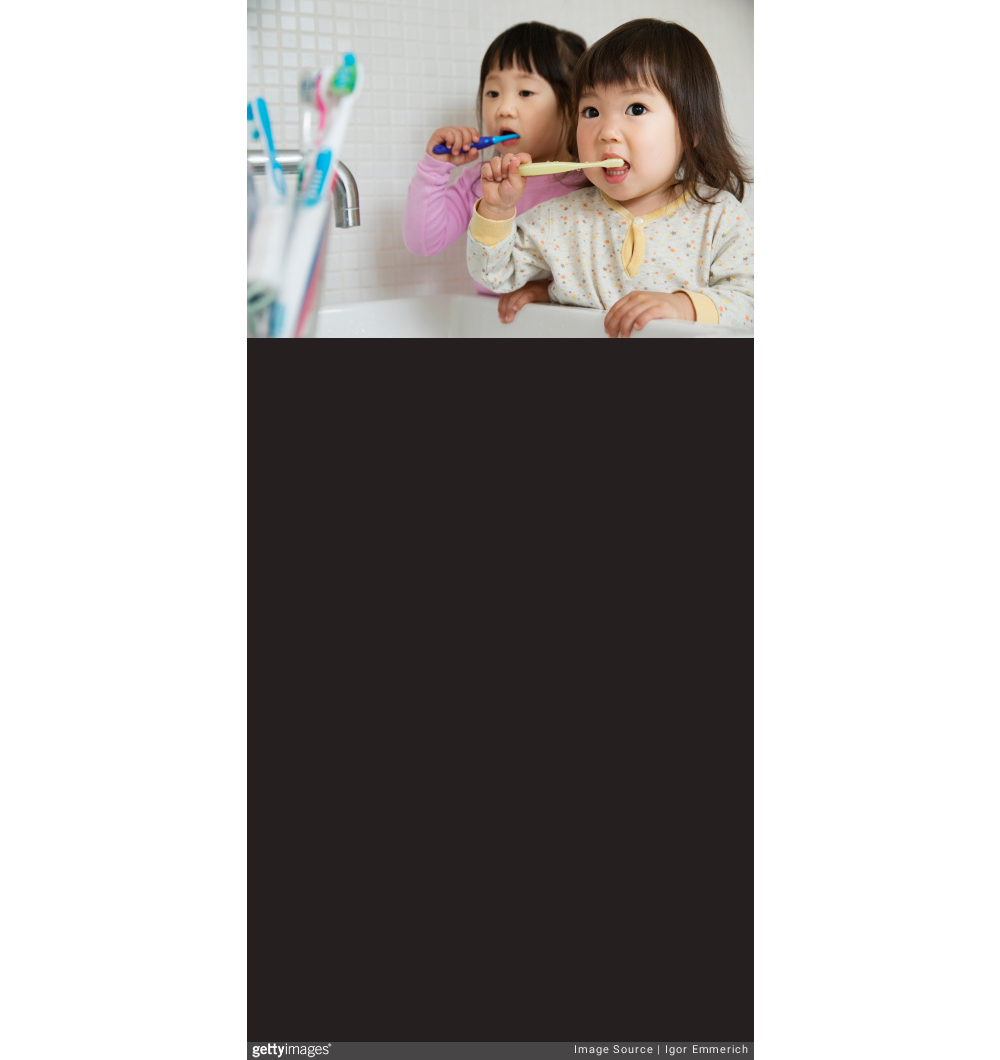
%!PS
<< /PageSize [1000 1060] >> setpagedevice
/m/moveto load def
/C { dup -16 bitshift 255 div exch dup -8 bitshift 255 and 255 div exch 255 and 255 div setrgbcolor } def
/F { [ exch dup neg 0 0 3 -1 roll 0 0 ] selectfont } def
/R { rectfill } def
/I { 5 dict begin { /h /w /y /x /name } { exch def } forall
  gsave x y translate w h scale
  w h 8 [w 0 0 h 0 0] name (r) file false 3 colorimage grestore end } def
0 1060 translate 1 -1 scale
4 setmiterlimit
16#FFFFFF C
0 0 1000 1060 R
16#251F20 C
247 338 507 704 R
(1.rgb) 247 0 507 338 I
16#474545 C
247 1042 507 18 R
(2.rgb) 252 1043 80 15 I
/Roboto-Regular 11 F
16#EEEEEE C
574 1053 m 1 0 (Image Source | Igor Emmerich) ashow
showpage
